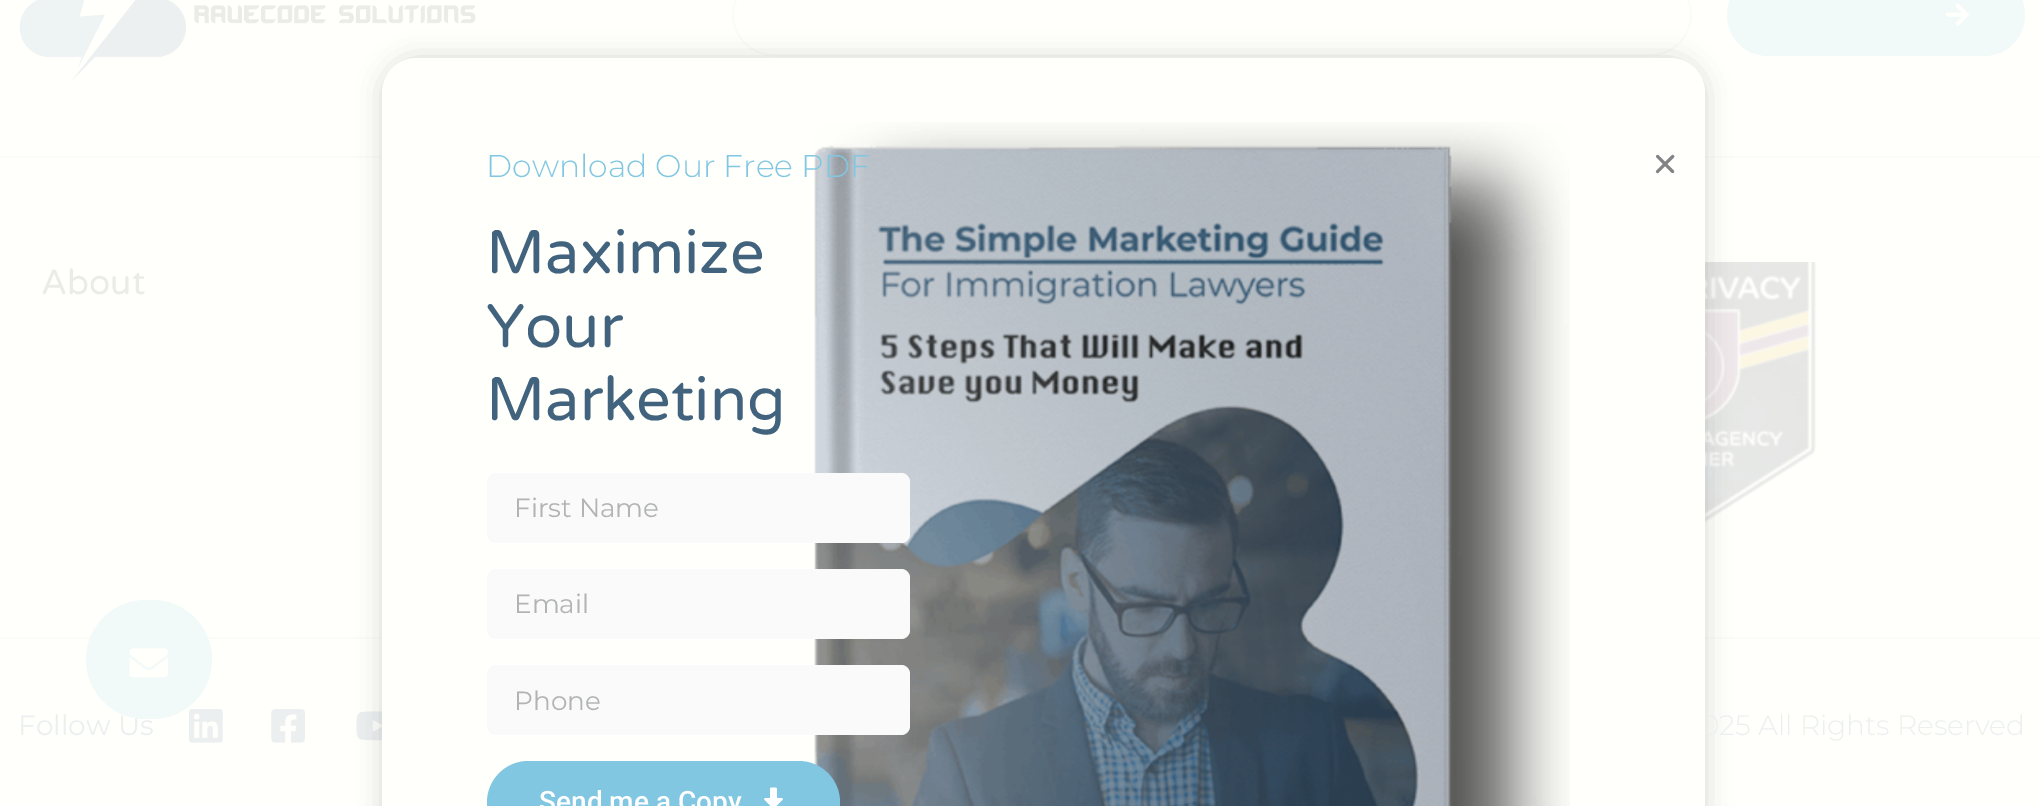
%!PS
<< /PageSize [2041 806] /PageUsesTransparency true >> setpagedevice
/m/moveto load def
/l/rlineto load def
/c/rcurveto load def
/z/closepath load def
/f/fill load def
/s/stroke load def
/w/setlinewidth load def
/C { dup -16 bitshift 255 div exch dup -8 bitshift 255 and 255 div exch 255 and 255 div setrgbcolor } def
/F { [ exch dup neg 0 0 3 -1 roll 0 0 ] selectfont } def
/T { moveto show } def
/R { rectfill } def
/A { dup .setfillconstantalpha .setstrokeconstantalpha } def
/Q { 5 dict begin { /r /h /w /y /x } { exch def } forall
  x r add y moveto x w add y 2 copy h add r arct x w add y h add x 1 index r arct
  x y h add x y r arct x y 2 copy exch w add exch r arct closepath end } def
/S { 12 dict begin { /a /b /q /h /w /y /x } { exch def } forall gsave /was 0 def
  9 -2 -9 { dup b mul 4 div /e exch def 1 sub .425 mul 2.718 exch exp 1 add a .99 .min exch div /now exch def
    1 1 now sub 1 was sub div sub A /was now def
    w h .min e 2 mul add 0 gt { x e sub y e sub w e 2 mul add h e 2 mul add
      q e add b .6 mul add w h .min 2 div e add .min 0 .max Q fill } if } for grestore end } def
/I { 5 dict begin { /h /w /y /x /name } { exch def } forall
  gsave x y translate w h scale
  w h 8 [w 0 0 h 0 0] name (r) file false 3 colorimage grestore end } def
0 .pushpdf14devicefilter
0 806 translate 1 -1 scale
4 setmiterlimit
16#FFFFFC C
0 0 2041 806 R
(4.rgb) 19 0 457 82 I
16#FBFBF8 C
2 w
733 -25 958 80 40 Q s
16#F2F9F9 C
1727 -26 298 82 41 Q f
16#FBFBF8 C
0 156 2041 2 R
(6.rgb) 1705 262 112 261 I
0 637 2041 2 R
(9.rgb) 356 711 26 30 I
16#000000 C
382 58 1323 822 35 13 .15 S
/Montserrat-Light 28 F
16#ECEFEF C
(025 All Rights Reserved) 1701 735 T
16#FFFFFC C
417 58 m 1253 0 l 19.5 0 35 15.5 35 35 c 0 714 l -1323 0 l 0 -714 l 0 -19.5 15.5 -35 35 -35 c z f
(1.rgb) 814 122 756 684 I
/Montserrat-Light 31.5 F
16#81C7E2 C
(Download Our Free PDF) 486 177 T
/VarelaRound-Regular 61.25 F
16#42637E C
(Maximize) 486 273 T
(Your) 486 347 T
(Marketing) 486 420 T
16#FAFAFA C
487 473 423 70 9 Q f
/Montserrat-Regular 26.25 F
16#B2B3B3 C
(First Name) 514 517 T
16#FAFAFA C
487 569 423 70 9 Q f
16#B2B3B3 C
(Email) 514 613 T
16#FAFAFA C
487 665 423 70 9 Q f
16#B2B3B3 C
(Phone) 514 710 T
16#81C7E2 C
487 761 353 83 41.5 Q f
/Roboto-Medium 28 F
16#FFFFFF C
(Send me a Copy) 539 811 T
(2.rgb) 764 787 19 19 I
(3.rgb) 1655 154 20 20 I
(5.rgb) 1946 3 23 23 I
/VarelaRound-Regular 35 F
16#EBEBE8 C
(About) 41 294 T
/Montserrat-Regular 28 F
16#ECEFEF C
(Follow Us) 18 735 T
(7.rgb) 189 709 34 34 I
(8.rgb) 271 709 34 34 I
16#F2F9F9 C
86 600 126 119 59.5 Q f
(10.rgb) 129 648 39 30 I
.poppdf14devicefilter showpage
